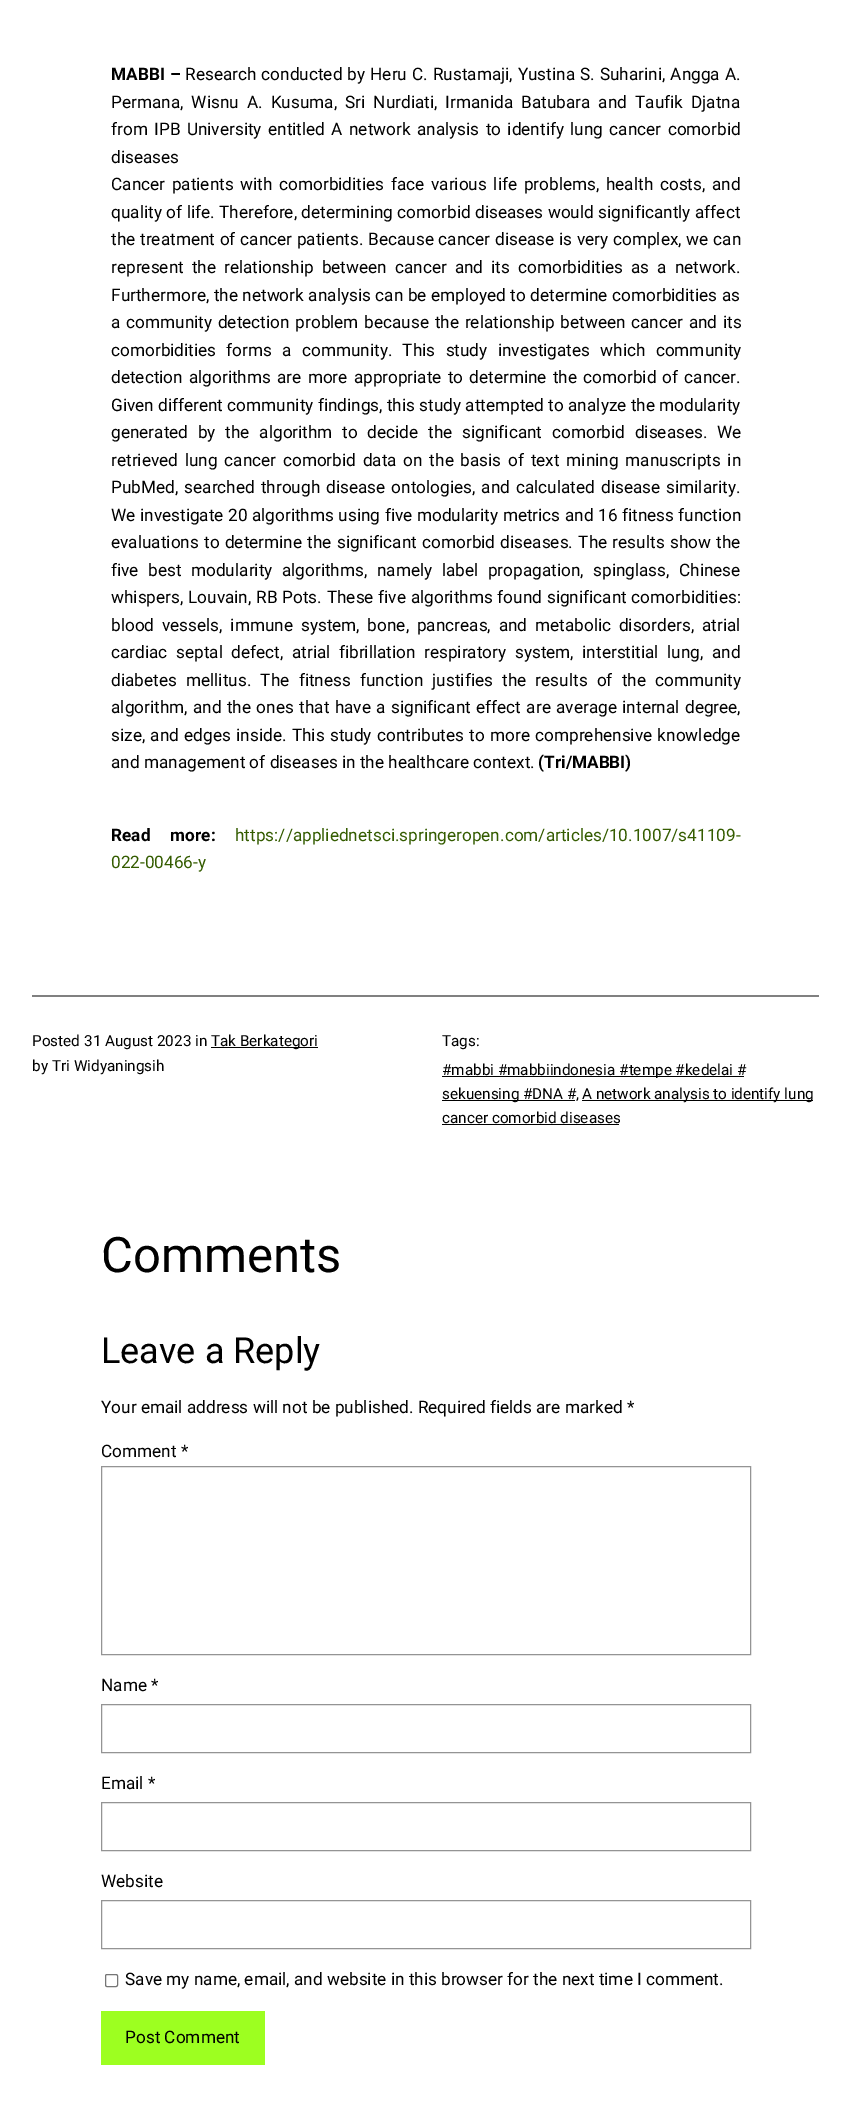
%!PS
<< /PageSize [851 2107] >> setpagedevice
/m/moveto load def
/s/stroke load def
/C { dup -16 bitshift 255 div exch dup -8 bitshift 255 and 255 div exch 255 and 255 div setrgbcolor } def
/F { [ exch dup neg 0 0 3 -1 roll 0 0 ] selectfont } def
/T { moveto show } def
/R { rectfill } def
/Q { 5 dict begin { /r /h /w /y /x } { exch def } forall
  x r add y moveto x w add y 2 copy h add r arct x w add y h add x 1 index r arct
  x y h add x y r arct x y 2 copy exch w add exch r arct closepath end } def
0 2107 translate 1 -1 scale
4 setmiterlimit
16#FFFFFF C
0 0 851 2107 R
/Roboto-Bold 17.2 F
16#000000 C
111 80 m 1 0 32 (MABBI –) widthshow
/Roboto-Regular 17.2 F
185 80 m .75 0 32 (Research conducted by Heru C. Rustamaji, Yustina S. Suharini, Angga A.) widthshow
111 108 m 3.75 0 32 (Permana, Wisnu A. Kusuma, Sri Nurdiati, Irmanida Batubara and Taufik Djatna) widthshow
111 135 m 2.1 0 32 (from IPB University entitled A network analysis to identify lung cancer comorbid) widthshow
(diseases) 111 163 T
111 190 m 2.4 0 32 (Cancer patients with comorbidities face various life problems, health costs, and) widthshow
111 218 m .25 0 32 (quality of life. Therefore, determining comorbid diseases would significantly affect) widthshow
111 245 m .5 0 32 (the treatment of cancer patients. Because cancer disease is very complex, we can) widthshow
111 273 m 3.75 0 32 (represent the relationship between cancer and its comorbidities as a network.) widthshow
111 301 m .25 0 32 (Furthermore, the network analysis can be employed to determine comorbidities as) widthshow
111 328 m 1.5 0 32 (a community detection problem because the relationship between cancer and its) widthshow
111 356 m 6 0 32 (comorbidities forms a community. This study investigates which community) widthshow
111 383 m 1.9 0 32 (detection algorithms are more appropriate to determine the comorbid of cancer.) widthshow
(Given different community findings, this study attempted to analyze the modularity) 111 411 T
111 438 m 5.5 0 32 (generated by the algorithm to decide the significant comorbid diseases. We) widthshow
111 466 m 2.5 0 32 (retrieved lung cancer comorbid data on the basis of text mining manuscripts in) widthshow
111 493 m 1.75 0 32 (PubMed, searched through disease ontologies, and calculated disease similarity.) widthshow
111 521 m .25 0 32 (We investigate 20 algorithms using five modularity metrics and 16 fitness function) widthshow
111 548 m 1 0 32 (evaluations to determine the significant comorbid diseases. The results show the) widthshow
111 576 m 5.25 0 32 (five best modularity algorithms, namely label propagation, spinglass, Chinese) widthshow
111 603 m .5 0 32 (whispers, Louvain, RB Pots. These five algorithms found significant comorbidities:) widthshow
111 631 m 3.5 0 32 (blood vessels, immune system, bone, pancreas, and metabolic disorders, atrial) widthshow
111 658 m 4.25 0 32 (cardiac septal defect, atrial fibrillation respiratory system, interstitial lung, and) widthshow
111 686 m 5 0 32 (diabetes mellitus. The fitness function justifies the results of the community) widthshow
111 713 m 1.1 0 32 (algorithm, and the ones that have a significant effect are average internal degree,) widthshow
111 741 m 1.1 0 32 (size, and edges inside. This study contributes to more comprehensive knowledge) widthshow
(and management of diseases in the healthcare context.) 111 768 T
/Roboto-Bold 17.2 F
(\(Tri/MABBI\)) 538 768 T
111 841 m 16 0 32 (Read more:) widthshow
/Roboto-Regular 17.2 F
16#345C00 C
(https://appliednetsci.springeropen.com/articles/10.1007/s41109-) 235 841 T
(022-00466-y) 111 868 T
16#808080 C
32 995 787 2 R
/Roboto-Regular 15.25 F
16#000000 C
(Posted) 32 1046 T
(31 August 2023) 84 1046 T
(in) 195 1046 T
211 1047 107 1 R
(Tak Berkategori) 211 1046 T
(by) 32 1071 T
(Tri Widyaningsih) 52 1071 T
(Tags:) 442 1046 T
442 1076 302 1 R
(#mabbi #mabbiindonesia #tempe #kedelai #) 442 1075 T
442 1100 133 1 R
(sekuensing #DNA #,) 442 1099 T
582 1100 231 1 R
(A network analysis to identify lung) 582 1099 T
(cancer comorbid diseases) 442 1123 T
442 1124 177 1 R
/Roboto-Regular 49 F
(Comments) 101 1272 T
/Roboto-Regular 36 F
(Leave a Reply) 101 1363 T
/Roboto-Regular 17.2 F
(Your email address will not be published. Required fields are marked *) 101 1413 T
(Comment *) 101 1457 T
16#949494 C
101.5 1466.5 649 188 rectstroke
16#000000 C
(Name *) 101 1691 T
16#949494 C
101.5 1704.5 649 48 rectstroke
16#000000 C
(Email *) 101 1789 T
16#949494 C
101.5 1802.5 649 48 rectstroke
16#000000 C
(Website) 101 1887 T
16#949494 C
101.5 1900.5 649 48 rectstroke
16#767676 C
105.5 1974.5 12 12 1.5 Q s
16#000000 C
(Save my name, email, and website in this browser for the next time I comment.) 125 1985 T
16#9DFF20 C
101 2011 164 54 R
16#000000 C
(Post Comment) 125 2043 T
showpage
